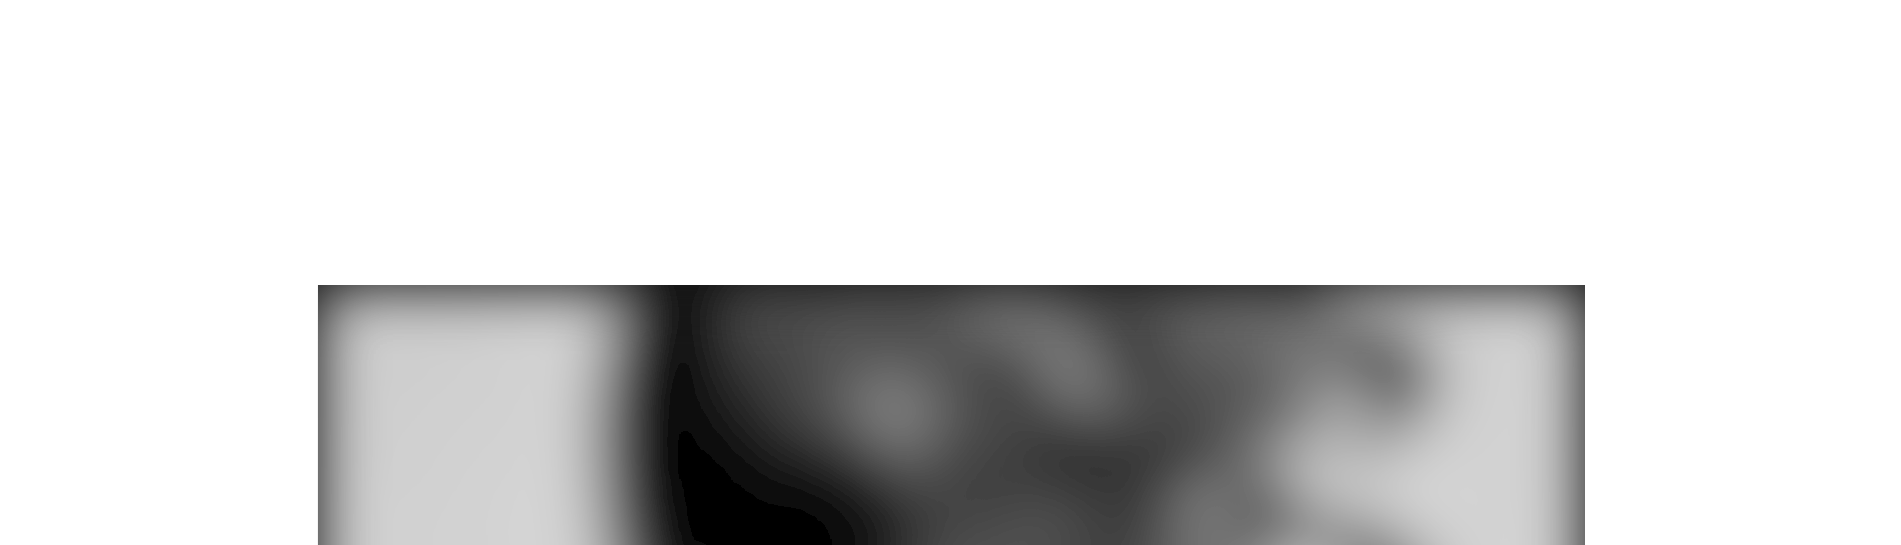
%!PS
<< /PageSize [1901 545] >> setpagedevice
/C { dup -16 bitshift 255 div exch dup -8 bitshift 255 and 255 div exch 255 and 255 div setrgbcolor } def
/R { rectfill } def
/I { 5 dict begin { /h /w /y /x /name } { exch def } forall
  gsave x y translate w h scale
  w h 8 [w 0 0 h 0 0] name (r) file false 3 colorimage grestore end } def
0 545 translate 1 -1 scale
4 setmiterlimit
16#FFFFFF C
0 0 1901 545 R
16#0A0A0A C
318 285 1267 260 R
(1.rgb) 317 285 1268 260 I
showpage
